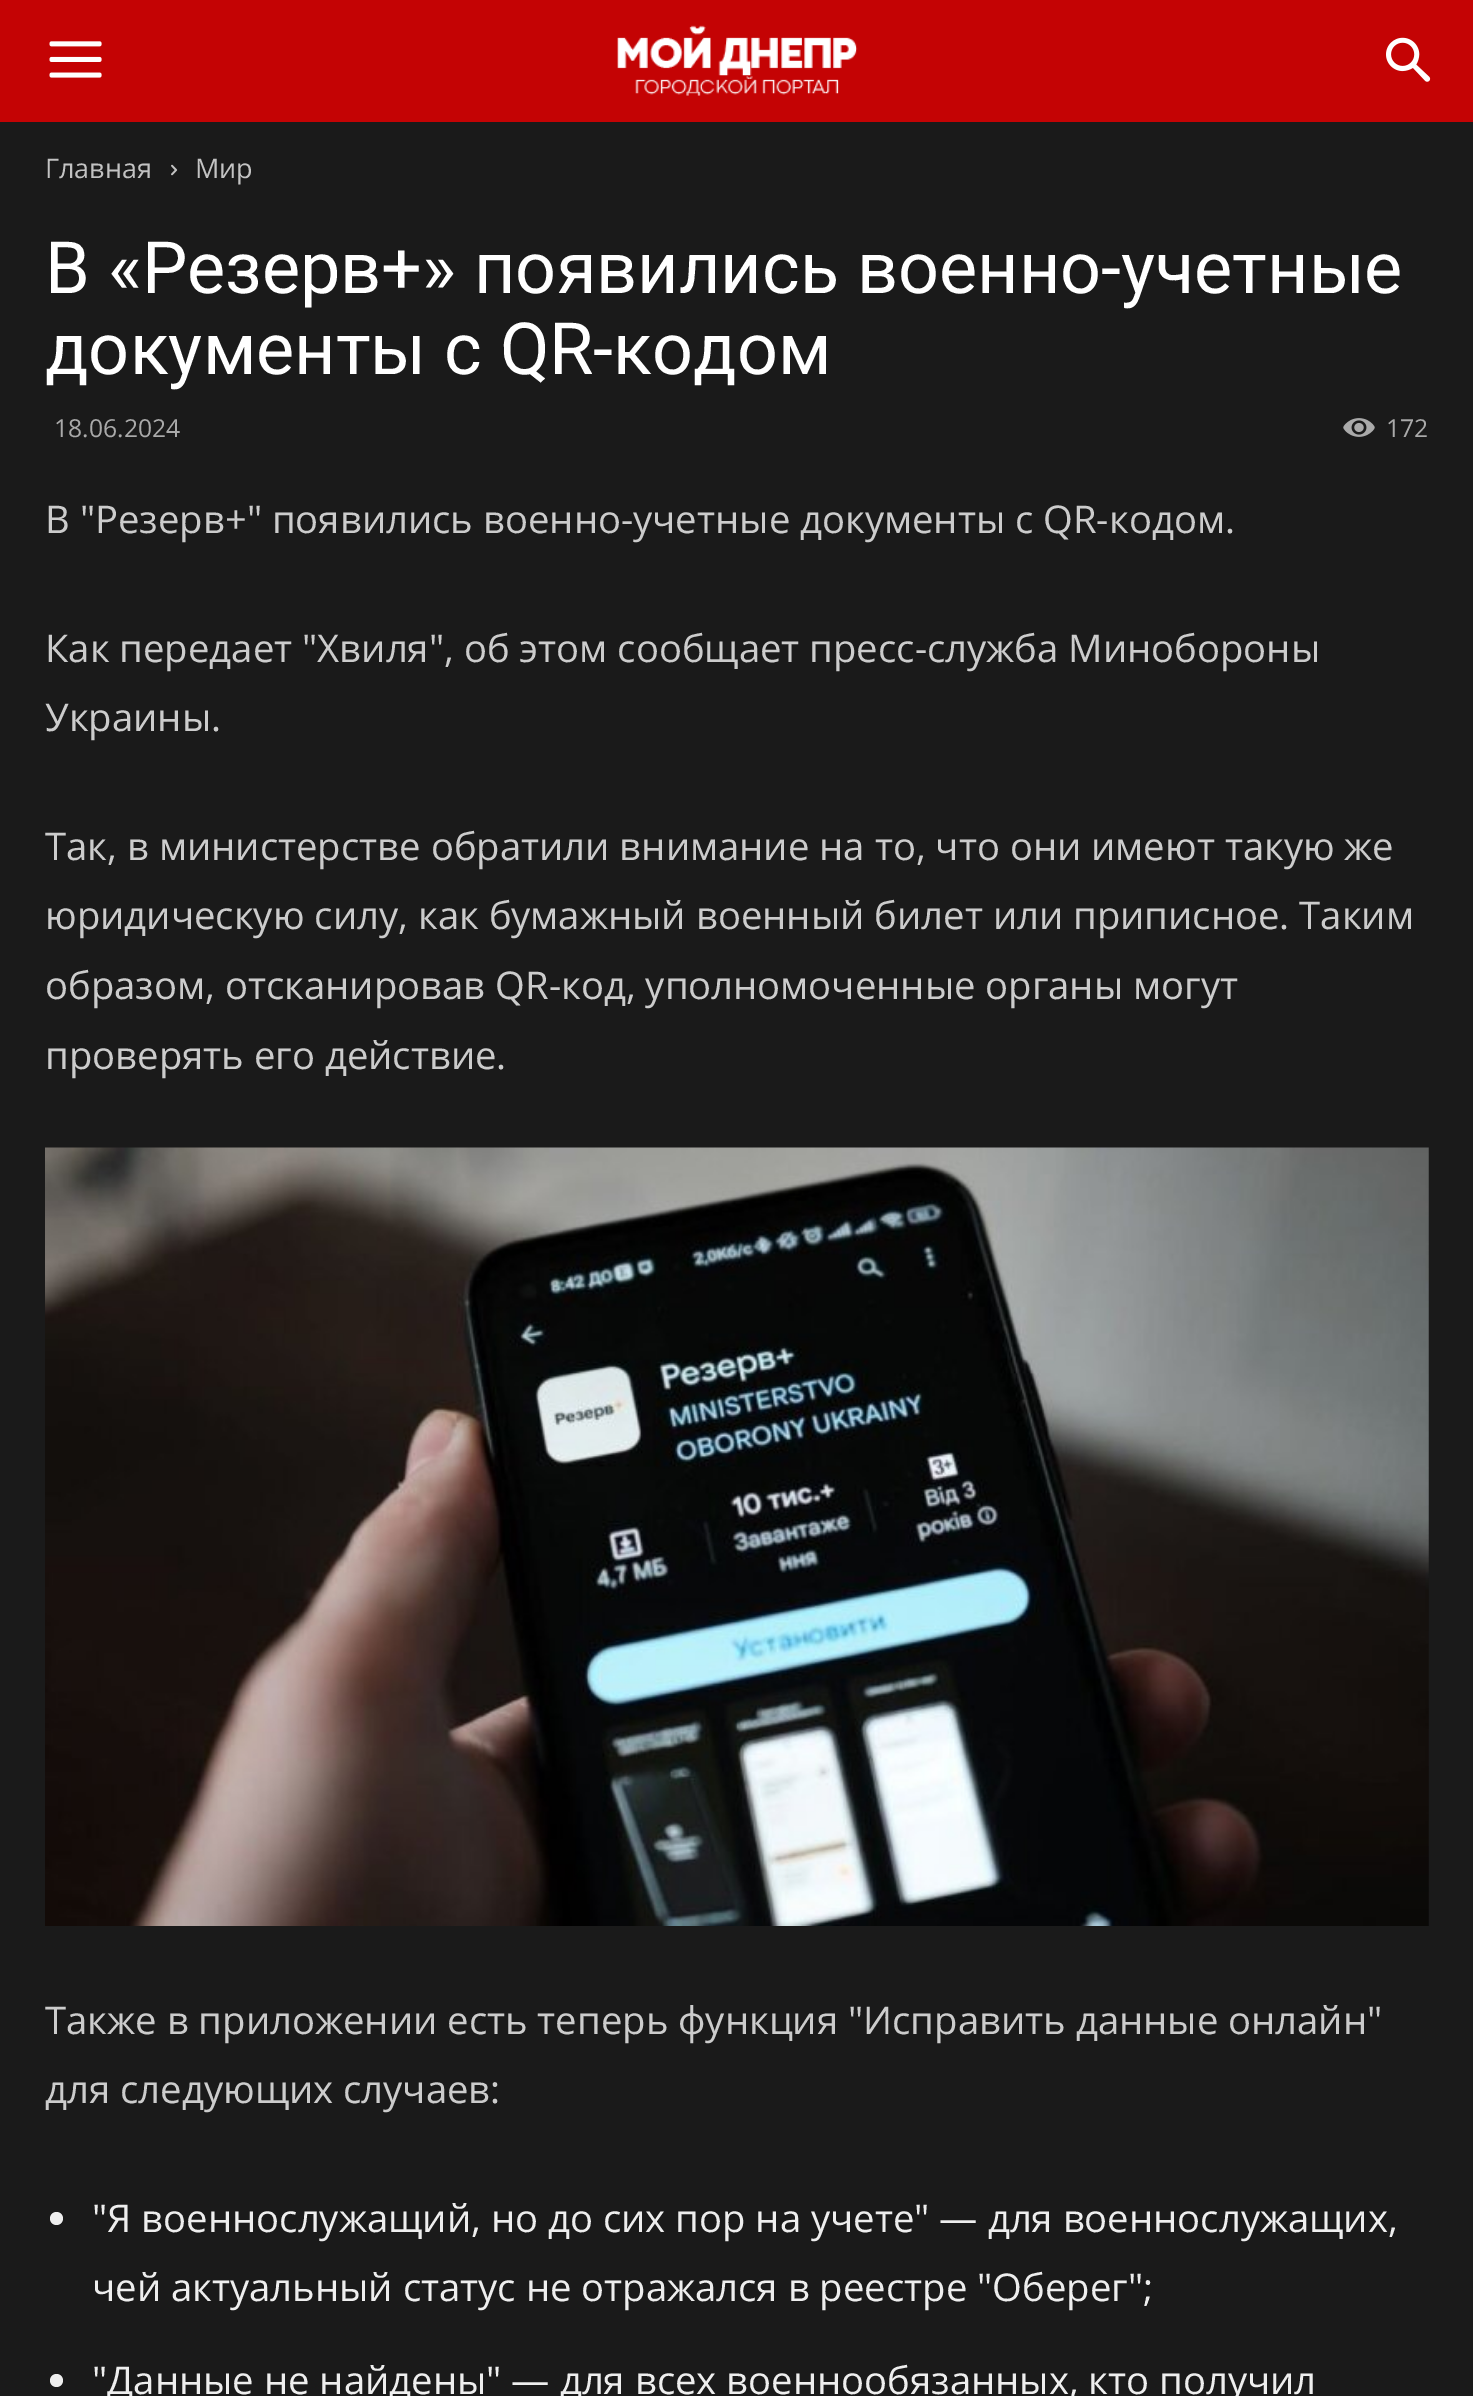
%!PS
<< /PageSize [1473 2396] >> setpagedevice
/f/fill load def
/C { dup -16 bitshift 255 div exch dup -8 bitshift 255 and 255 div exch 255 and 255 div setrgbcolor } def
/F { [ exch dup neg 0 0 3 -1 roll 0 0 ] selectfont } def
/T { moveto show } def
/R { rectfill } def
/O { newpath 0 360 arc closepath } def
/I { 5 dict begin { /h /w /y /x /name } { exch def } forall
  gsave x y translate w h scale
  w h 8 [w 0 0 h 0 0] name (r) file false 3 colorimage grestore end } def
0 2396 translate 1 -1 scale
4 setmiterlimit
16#1A1A1A C
0 0 1473 2396 R
16#C40304 C
0 0 1473 122 R
(1.rgb) 49 41 53 37 I
(2.rgb) 617 25 241 71 I
(3.rgb) 1386 37 45 45 I
/OpenSans-Regular 27 F
16#C3C3C3 C
(Главная) 45 178 T
(4.rgb) 171 164 7 12 I
(Мир) 195 178 T
/Roboto-Regular 72 F
16#FFFFFF C
(В «Резерв+» появились военно-учетные) 45 293 T
(документы с QR-кодом) 45 374 T
/OpenSans-Regular 24.75 F
16#AAAAAA C
(18.06.2024) 54 437 T
(5.rgb) 1343 418 32 19 I
(172) 1386 437 T
/OpenSans-Regular 38.25 F
16#CCCCCC C
(В "Резерв+" появились военно-учетные документы с QR-кодом.) 45 533 T
(Как передает "Хвиля", об этом сообщает пресс-служба Минобороны) 45 662 T
(Украины.) 45 731 T
(Так, в министерстве обратили внимание на то, что они имеют такую же) 45 860 T
(юридическую силу, как бумажный военный билет или приписное. Таким) 45 929 T
(образом, отсканировав QR-код, уполномоченные органы могут) 45 999 T
(проверять его действие.) 45 1069 T
(6.rgb) 45 1147 1384 779 I
(Также в приложении есть теперь функция "Исправить данные онлайн") 45 2034 T
(для следующих случаев:) 45 2103 T
16#EEEEEE C
56.5 2218.5 6.5 O f
("Я военнослужащий, но до сих пор на учете" — для военнослужащих,) 92 2232 T
(чей актуальный статус не отражался в реестре "Оберег";) 92 2301 T
56.5 2380.5 6.5 O f
("Данные не найдены" — для всех военнообязанных, кто получил) 92 2394 T
showpage
